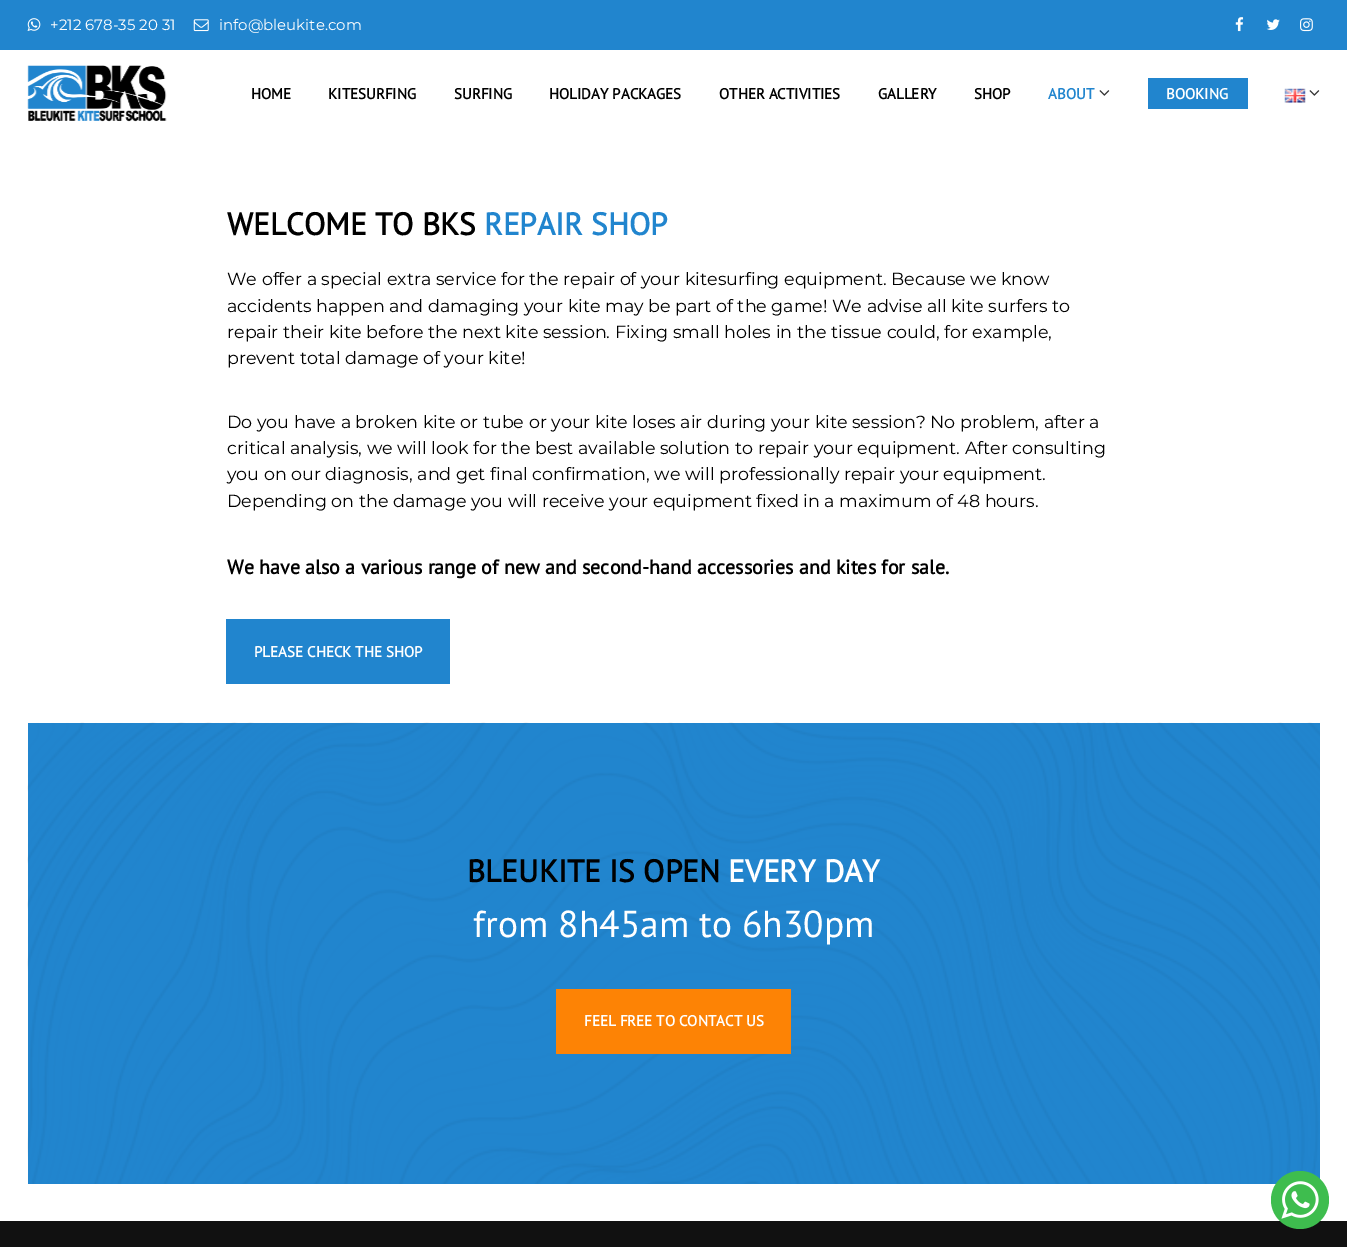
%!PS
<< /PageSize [1347 1247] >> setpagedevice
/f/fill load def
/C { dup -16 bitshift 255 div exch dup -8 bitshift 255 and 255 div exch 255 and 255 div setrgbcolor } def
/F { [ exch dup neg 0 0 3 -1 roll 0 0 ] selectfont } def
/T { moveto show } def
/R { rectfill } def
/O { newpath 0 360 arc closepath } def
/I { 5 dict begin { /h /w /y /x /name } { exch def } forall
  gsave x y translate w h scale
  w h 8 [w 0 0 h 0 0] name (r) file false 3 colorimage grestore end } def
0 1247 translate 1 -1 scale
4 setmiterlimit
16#FFFFFF C
0 0 1347 1247 R
16#2185CE C
0 0 1347 50 R
(1.rgb) 27 18 14 13 I
/Montserrat-Regular 15 F
16#FFFFFF C
(+212 678-35 20 31) 50 30 T
(2.rgb) 193 19 16 13 I
(info@bleukite.com) 219 30 T
(3.rgb) 1235 17 9 15 I
(4.rgb) 1266 19 14 11 I
(5.rgb) 1300 18 13 14 I
(6.rgb) 27 65 140 57 I
/PTSans-Bold 15 F
16#000000 C
(HOME) 251 99 T
(KITESURFING) 328 99 T
(SURFING) 454 99 T
(HOLIDAY PACKAGES) 549 99 T
(OTHER ACTIVITIES) 719 99 T
(GALLERY) 878 99 T
(SHOP) 974 99 T
16#2185CE C
(ABOUT) 1048 99 T
(7.rgb) 1099 90 11 6 I
1148 78 100 31 R
16#FFFFFF C
(BOOKING) 1166 99 T
(8.rgb) 1284 88 22 15 I
(7.rgb) 1309 90 11 6 I
/PTSans-Bold 31.25 F
16#000000 C
(WELCOME TO BKS) 227 235 T
16#2185CE C
(REPAIR SHOP) 484 235 T
/Montserrat-Regular 17.5 F
16#000000 C
(We offer a special extra service for the repair of your kitesurfing equipment. Because we know) 227 285 T
(accidents happen and damaging your kite may be part of the game! We advise all kite surfers to) 227 312 T
(repair their kite before the next kite session. Fixing small holes in the tissue could, for example,) 227 338 T
(prevent total damage of your kite!) 227 364 T
(Do you have a broken kite or tube or your kite loses air during your kite session? No problem, after a) 227 428 T
(critical analysis, we will look for the best available solution to repair your equipment. After consulting) 227 454 T
(you on our diagnosis, and get final confirmation, we will professionally repair your equipment.) 227 480 T
(Depending on the damage you will receive your equipment fixed in a maximum of 48 hours.) 227 507 T
/PTSans-Bold 20 F
(We have also a various range of new and second-hand accessories and kites for sale.) 227 574 T
16#2185CE C
226 619 224 65 R
/PTSans-Bold 15 F
16#FFFFFF C
(PLEASE CHECK THE SHOP) 254 657 T
16#2185CE C
28 723 1292 461 R
(9.rgb) 27 722 1293 462 I
/PTSans-Bold 31.25 F
16#000000 C
(BLEUKITE IS OPEN) 467 882 T
16#FFFFFF C
(EVERY DAY) 728 882 T
/PTSans-Regular 37.5 F
(from 8h45am to 6h30pm) 473 937 T
16#FD8305 C
556 989 235 65 R
/PTSans-Bold 15 F
16#FFFFFF C
(FEEL FREE TO CONTACT US) 584 1026 T
16#111111 C
0 1221 1347 26 R
16#3EBD4E C
1300 1200 29 O f
(10.rgb) 1281 1181 38 38 I
showpage
